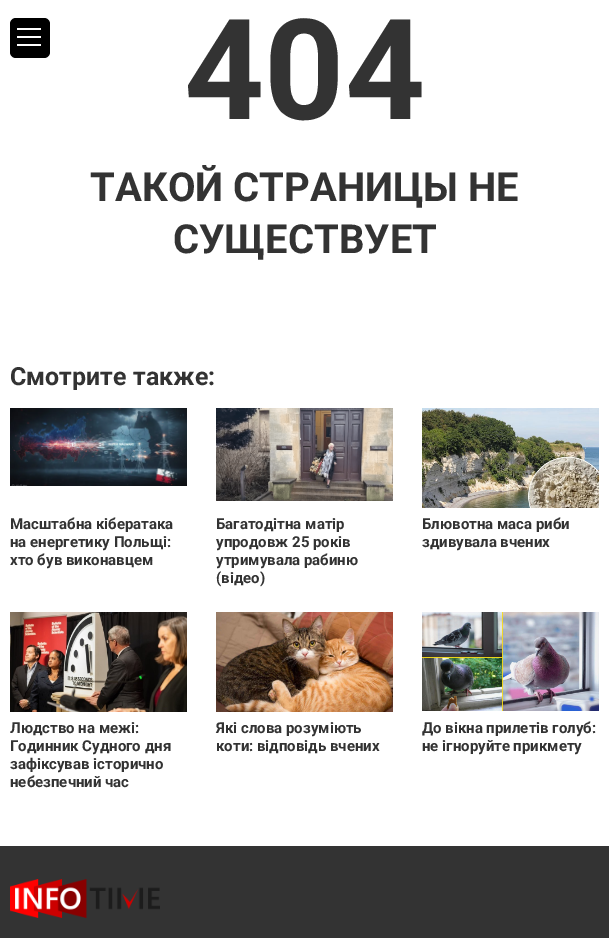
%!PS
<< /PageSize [609 938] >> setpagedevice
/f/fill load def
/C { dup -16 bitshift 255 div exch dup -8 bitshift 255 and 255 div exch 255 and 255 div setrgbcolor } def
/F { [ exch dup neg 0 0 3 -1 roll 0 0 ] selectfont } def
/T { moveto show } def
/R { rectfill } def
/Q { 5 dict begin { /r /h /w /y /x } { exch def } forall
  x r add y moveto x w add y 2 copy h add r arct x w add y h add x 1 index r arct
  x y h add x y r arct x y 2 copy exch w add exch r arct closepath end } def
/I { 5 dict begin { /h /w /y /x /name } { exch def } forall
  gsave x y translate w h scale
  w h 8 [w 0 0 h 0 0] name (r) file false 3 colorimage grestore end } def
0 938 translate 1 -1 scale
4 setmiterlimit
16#FFFFFF C
0 0 609 938 R
/Roboto-Bold 140 F
16#333333 C
(404) 184 119 T
/Roboto-Bold 40 F
(ТАКОЙ СТРАНИЦЫ НЕ) 90 201 T
(СУЩЕСТВУЕТ) 173 253 T
/Roboto-Bold 25 F
(Смотрите также:) 10 385 T
(1.rgb) 10 408 177 78 I
/Roboto-Bold 15 F
(Масштабна кібератака) 10 529 T
(на енергетику Польщі:) 10 547 T
(хто був виконавцем) 10 565 T
(2.rgb) 216 408 177 93 I
(Багатодітна матір) 216 529 T
(упродовж 25 років) 216 547 T
(утримувала рабиню) 216 565 T
(\(відео\)) 216 583 T
(3.rgb) 422 408 177 100 I
(Блювотна маса риби) 422 529 T
(здивувала вчених) 422 547 T
(4.rgb) 10 612 177 100 I
(Людство на межі:) 10 733 T
(Годинник Судного дня) 10 751 T
(зафіксував історично) 10 769 T
(небезпечний час) 10 787 T
(5.rgb) 216 612 177 100 I
(Які слова розуміють) 216 733 T
(коти: відповідь вчених) 216 751 T
(6.rgb) 422 612 177 99 I
(До вікна прилетів голуб:) 422 733 T
(не ігноруйте прикмету) 422 751 T
16#000000 C
10 18 40 40 6 Q f
16#FFFFFF C
17 36 24 2 R
17 28 24 2 R
17 44 24 2 R
16#333333 C
0 846 609 92 R
(7.rgb) 10 879 150 39 I
showpage
